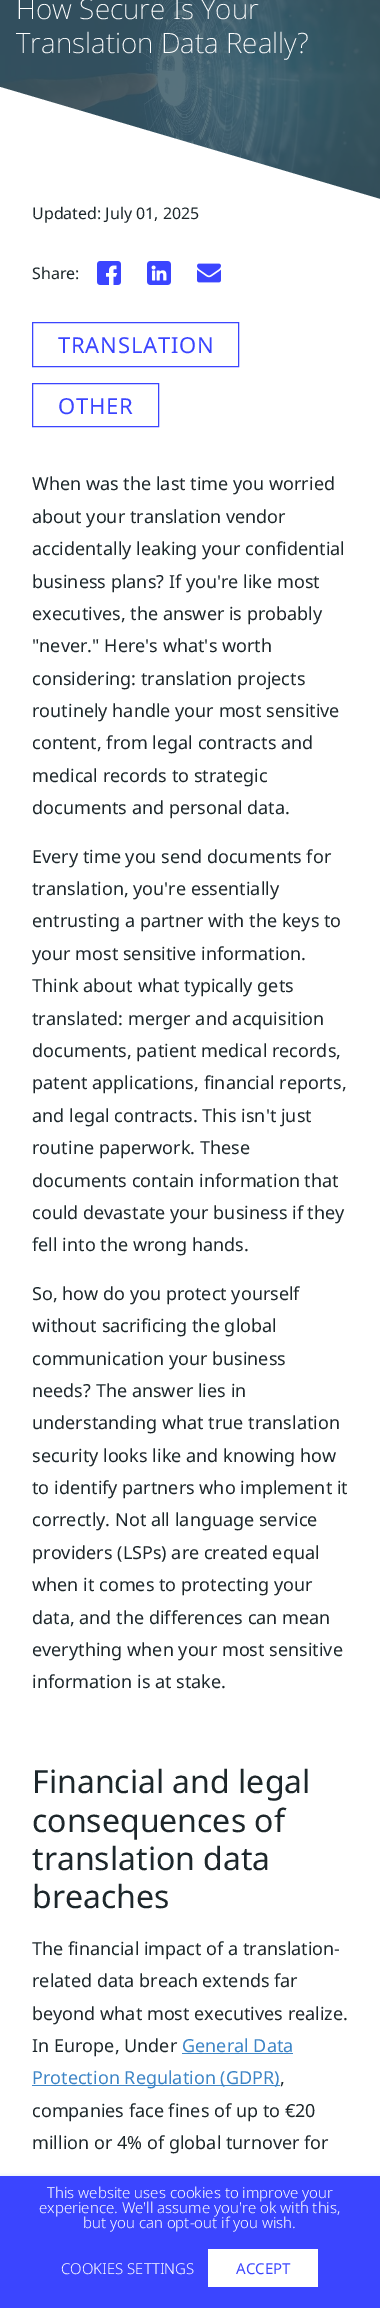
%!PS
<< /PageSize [380 2308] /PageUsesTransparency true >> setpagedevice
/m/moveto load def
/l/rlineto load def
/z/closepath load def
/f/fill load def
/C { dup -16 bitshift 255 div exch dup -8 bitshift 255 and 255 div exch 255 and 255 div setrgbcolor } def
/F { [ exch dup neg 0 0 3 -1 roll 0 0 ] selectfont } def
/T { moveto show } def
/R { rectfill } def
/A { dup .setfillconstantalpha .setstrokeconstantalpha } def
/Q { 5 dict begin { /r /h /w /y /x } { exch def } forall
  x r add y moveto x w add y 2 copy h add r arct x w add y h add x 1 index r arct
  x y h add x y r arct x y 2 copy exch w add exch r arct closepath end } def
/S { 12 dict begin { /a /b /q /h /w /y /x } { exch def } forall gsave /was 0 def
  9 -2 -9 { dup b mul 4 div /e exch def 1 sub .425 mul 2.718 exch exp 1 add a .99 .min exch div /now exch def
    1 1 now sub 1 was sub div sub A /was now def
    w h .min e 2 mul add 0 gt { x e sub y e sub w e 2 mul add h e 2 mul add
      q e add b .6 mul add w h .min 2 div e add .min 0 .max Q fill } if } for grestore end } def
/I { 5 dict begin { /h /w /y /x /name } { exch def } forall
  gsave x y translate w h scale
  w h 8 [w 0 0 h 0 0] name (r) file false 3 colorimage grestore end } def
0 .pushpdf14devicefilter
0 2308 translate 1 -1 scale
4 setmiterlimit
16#FFFFFF C
0 0 380 2308 R
(1.rgb) 0 0 380 199 I
/NotoSans-ExtraLight 28 F
(How Secure Is Your) 16 19 T
(Translation Data Really?) 16 53 T
0 199 m 0 -112 l 380 112 l z f
/NotoSans-Regular 16 F
16#1D272B C
(Updated: July 01, 2025) 32 219 T
(Share:) 32 279 T
(2.rgb) 97 261 24 24 I
(3.rgb) 147 261 24 24 I
(4.rgb) 197 263 24 20 I
16#3B45FF C
32.5 322.5 206 44 rectstroke
/NotoSans-Regular 22 F
58 353 m .75 0 (TRANSLATION) ashow
32.5 383.5 126 43 rectstroke
58 414 m .75 0 (OTHER) ashow
/NotoSans-Regular 18 F
16#1D272B C
(When was the last time you worried) 32 490 T
(about your translation vendor) 32 523 T
(accidentally leaking your confidential) 32 555 T
(business plans? If you're like most) 32 588 T
(executives, the answer is probably) 32 620 T
("never." Here's what's worth) 32 652 T
(considering: translation projects) 32 685 T
(routinely handle your most sensitive) 32 717 T
(content, from legal contracts and) 32 749 T
(medical records to strategic) 32 782 T
(documents and personal data.) 32 814 T
(Every time you send documents for) 32 863 T
(translation, you're essentially) 32 895 T
(entrusting a partner with the keys to) 32 927 T
(your most sensitive information.) 32 960 T
(Think about what typically gets) 32 992 T
(translated: merger and acquisition) 32 1025 T
(documents, patient medical records,) 32 1057 T
(patent applications, financial reports,) 32 1089 T
(and legal contracts. This isn't just) 32 1122 T
(routine paperwork. These) 32 1154 T
(documents contain information that) 32 1187 T
(could devastate your business if they) 32 1219 T
(fell into the wrong hands.) 32 1251 T
(So, how do you protect yourself) 32 1300 T
(without sacrificing the global) 32 1332 T
(communication your business) 32 1365 T
(needs? The answer lies in) 32 1397 T
(understanding what true translation) 32 1429 T
(security looks like and knowing how) 32 1462 T
(to identify partners who implement it) 32 1494 T
(correctly. Not all language service) 32 1526 T
(providers \(LSPs\) are created equal) 32 1559 T
(when it comes to protecting your) 32 1591 T
(data, and the differences can mean) 32 1624 T
(everything when your most sensitive) 32 1656 T
(information is at stake.) 32 1688 T
/NotoSans-Regular 32 F
(Financial and legal) 32 1793 T
(consequences of) 32 1832 T
(translation data) 32 1870 T
(breaches) 32 1908 T
/NotoSans-Regular 18 F
(The financial impact of a translation-) 32 1955 T
(related data breach extends far) 32 1987 T
(beyond what most executives realize.) 32 2020 T
(In Europe, Under) 32 2052 T
16#3D85C6 C
(General Data) 182 2052 T
182 2053 111 1 R
32 2085 248 1 R
(Protection Regulation \(GDPR\)) 32 2084 T
16#1D272B C
(,) 280 2084 T
(companies face fines of up to €20) 32 2117 T
(million or 4% of global turnover for) 32 2149 T
16#EAF0F6 C
0 2175 380 132 0 1.5 1 S
16#3B45FF C
0 2176 380 132 R
/NotoSans-Light 15 F
16#FFFFFF C
(This website uses cookies to improve your) 47 2198 T
(experience. We'll assume you're ok with this,) 39 2213 T
(but you can opt-out if you wish.) 83 2228 T
(COOKIES SETTINGS) 61 2274 T
208 2249 110 38 R
/NotoSans-Regular 15 F
16#3B45FF C
(ACCEPT) 236 2274 T
.poppdf14devicefilter showpage
